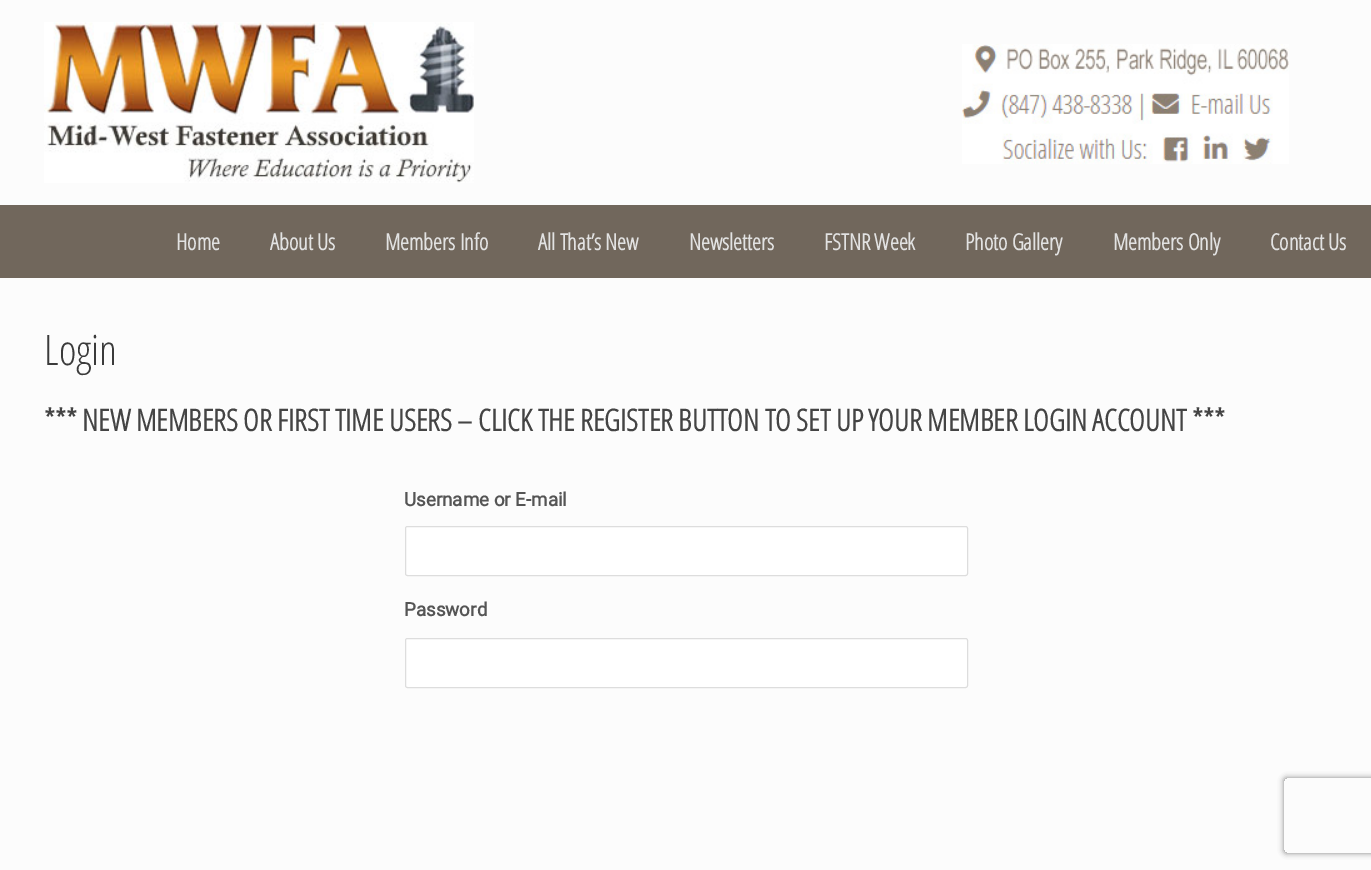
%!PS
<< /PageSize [1371 870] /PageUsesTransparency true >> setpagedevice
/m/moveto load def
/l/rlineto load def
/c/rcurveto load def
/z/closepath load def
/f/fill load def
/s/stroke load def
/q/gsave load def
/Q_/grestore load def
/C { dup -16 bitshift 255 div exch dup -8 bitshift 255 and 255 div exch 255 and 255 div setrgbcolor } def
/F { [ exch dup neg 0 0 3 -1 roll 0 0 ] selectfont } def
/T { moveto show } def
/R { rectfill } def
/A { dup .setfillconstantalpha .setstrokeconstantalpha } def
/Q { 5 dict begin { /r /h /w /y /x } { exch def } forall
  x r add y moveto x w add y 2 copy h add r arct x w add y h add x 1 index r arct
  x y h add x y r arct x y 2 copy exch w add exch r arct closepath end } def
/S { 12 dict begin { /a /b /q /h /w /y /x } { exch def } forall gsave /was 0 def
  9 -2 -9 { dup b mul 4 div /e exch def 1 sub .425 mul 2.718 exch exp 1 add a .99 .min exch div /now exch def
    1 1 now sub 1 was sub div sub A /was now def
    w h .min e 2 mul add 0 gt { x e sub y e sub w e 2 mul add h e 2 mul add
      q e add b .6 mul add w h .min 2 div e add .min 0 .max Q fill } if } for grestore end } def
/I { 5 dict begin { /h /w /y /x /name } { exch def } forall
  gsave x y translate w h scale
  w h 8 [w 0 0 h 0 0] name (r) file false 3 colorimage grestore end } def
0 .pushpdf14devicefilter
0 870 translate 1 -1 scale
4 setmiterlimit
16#FCFCFC C
0 0 1371 870 R
(1.rgb) 44 22 430 161 I
(2.rgb) 962 44 327 120 I
16#71675C C
0 205 1371 73 R
/OpenSansCondensed-Bold 22.5 F
16#E2E2E2 C
(Home) 176 250 T
(About Us) 270 250 T
(Members Info) 385 250 T
(All That’s New) 538 250 T
(Newsletters) 689 250 T
(FSTNR Week) 824 250 T
(Photo Gallery) 965 250 T
(Members Only) 1113 250 T
(Contact Us) 1270 250 T
/OpenSansCondensed-Light 42 F
16#3B3B3B C
(Login) 44 365 T
/OpenSansCondensed-Bold 30 F
16#444444 C
(*** NEW MEMBERS OR FIRST TIME USERS – CLICK THE REGISTER BUTTON TO SET UP YOUR MEMBER LOGIN ACCOUNT ***) 44 431 T
/Roboto-Bold 18.75 F
16#555555 C
(Username or E-mail) 404 506 T
16#FFFFFF C
405.5 526.5 562 49 2 Q q f Q_
16#DDDDDD C
s
16#555555 C
(Password) 404 616 T
16#FFFFFF C
405.5 638.5 562 49 2 Q q f Q_
16#DDDDDD C
s
q
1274 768 m 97 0 l 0 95 l -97 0 l z 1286.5 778 m 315 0 l 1.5 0 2.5 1 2.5 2.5 c 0 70 l 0 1.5 -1 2.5 -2.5 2.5 c -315 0 l -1.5 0 -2.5 -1 -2.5 -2.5 c 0 -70 l 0 -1.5 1 -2.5 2.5 -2.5 c z eoclip newpath
16#808080 C
1284 778 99 75 2.5 3 1 S
Q_
.poppdf14devicefilter showpage
